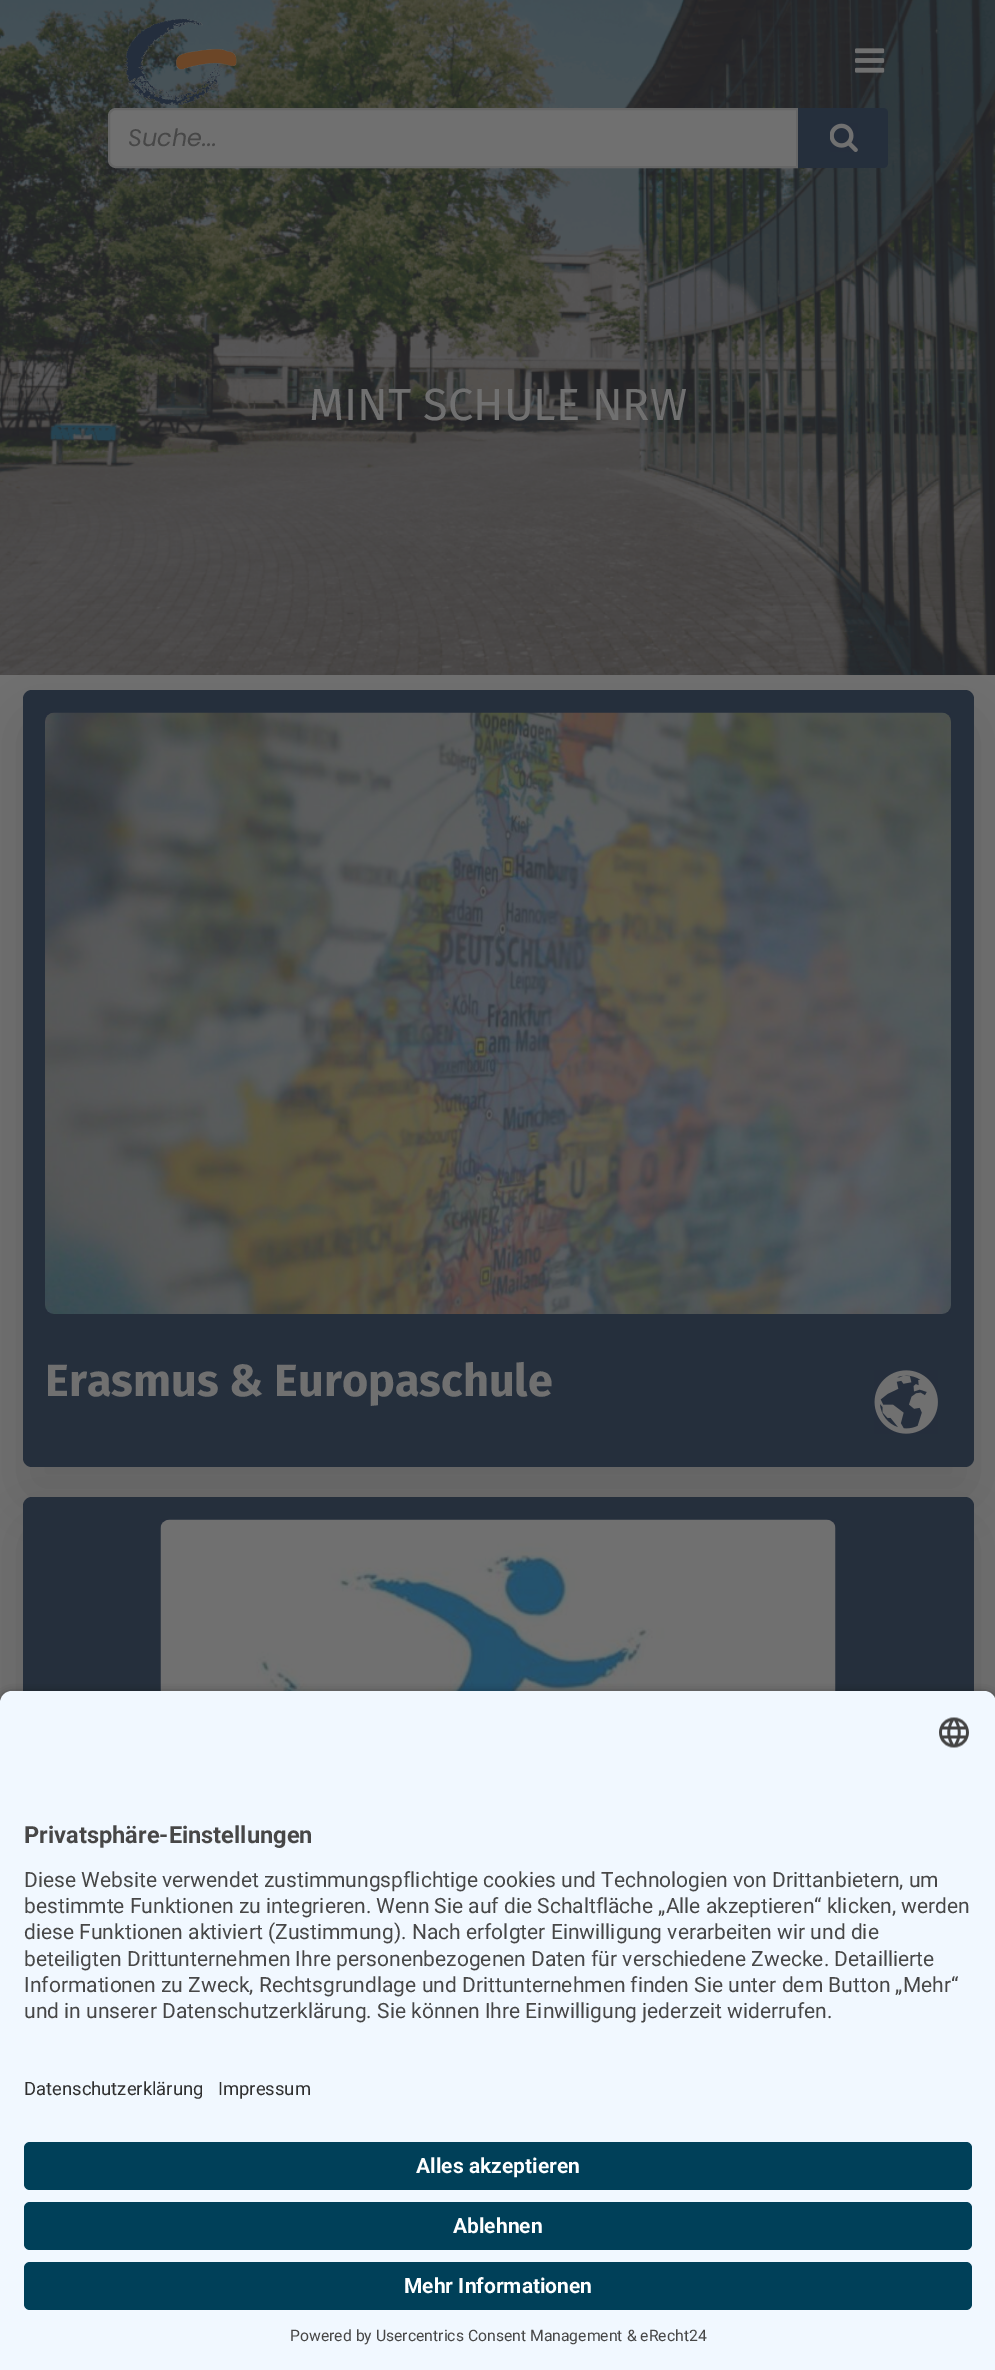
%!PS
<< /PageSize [995 2370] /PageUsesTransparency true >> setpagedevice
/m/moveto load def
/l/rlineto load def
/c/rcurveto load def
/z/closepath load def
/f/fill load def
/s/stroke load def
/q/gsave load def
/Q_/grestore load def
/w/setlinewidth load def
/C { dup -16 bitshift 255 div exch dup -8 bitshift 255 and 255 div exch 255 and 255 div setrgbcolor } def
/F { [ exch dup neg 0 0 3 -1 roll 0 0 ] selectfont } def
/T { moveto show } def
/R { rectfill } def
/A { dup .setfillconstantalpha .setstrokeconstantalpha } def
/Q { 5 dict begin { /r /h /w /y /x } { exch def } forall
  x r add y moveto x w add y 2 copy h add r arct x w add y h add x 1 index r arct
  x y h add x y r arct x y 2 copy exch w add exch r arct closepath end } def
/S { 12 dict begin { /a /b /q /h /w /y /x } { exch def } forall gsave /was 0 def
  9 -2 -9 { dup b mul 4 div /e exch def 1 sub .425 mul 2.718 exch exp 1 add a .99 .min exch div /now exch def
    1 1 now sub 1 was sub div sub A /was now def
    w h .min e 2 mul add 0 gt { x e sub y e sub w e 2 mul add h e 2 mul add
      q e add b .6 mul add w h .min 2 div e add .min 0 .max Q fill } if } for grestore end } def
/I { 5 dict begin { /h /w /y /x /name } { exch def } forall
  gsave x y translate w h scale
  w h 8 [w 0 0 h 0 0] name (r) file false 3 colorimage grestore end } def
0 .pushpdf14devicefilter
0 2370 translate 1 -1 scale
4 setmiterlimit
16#707070 C
0 0 995 2370 R
(4.rgb) 0 0 995 675 I
(1.rgb) 124 18 113 88 I
(2.rgb) 855 48 30 25 I
116 109 m 681 0 l 0 58 l -681 0 l -4 0 -7 -3 -7 -7 c 0 -44 l 0 -4 3 -7 7 -7 c z q f Q_
16#666666 C
2 w
s
/Poppins-Italic 24 F
16#474747 C
(Suche...) 128 146 T
16#252F3C C
798 108 m 85 0 l 3 0 5 2 5 5 c 0 50 l 0 3 -2 5 -5 5 c -85 0 l z f
(3.rgb) 830 123 28 29 I
/FiraSans-Regular 45 F
16#707070 C
(MINT SCHULE NRW) 309 420 T
16#242424 C
23 719 951 777 9 28.5 .16 S
16#252F3C C
23 690 951 777 9 Q f
(5.rgb) 45 712 906 602 I
/FiraSans-Bold 45 F
16#707070 C
(Erasmus & Europaschule) 45 1396 T
(6.rgb) 874 1370 64 64 I
16#242424 C
23 1526 951 571 9 28.5 .16 S
16#252F3C C
23 1497 951 572 9 Q f
(7.rgb) 160 1519 676 172 I
16#000000 C
0 1695 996 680 12 5 .8 S
16#F1F8FF C
12 1691 m 972 0 l 6.5 0 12 5.5 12 12 c 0 352 l -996 0 l 0 -352 l 0 -6.5 5.5 -12 12 -12 c z f
(8.rgb) 939 1717 30 31 I
/Roboto-Bold 23.6 F
16#474747 C
(Privatsphäre-Einstellungen) 24 1843 T
/Roboto-Regular 21 F
(Diese Website verwendet zustimmungspflichtige cookies und Technologien von Drittanbietern, um) 24 1887 T
(bestimmte Funktionen zu integrieren. Wenn Sie auf die Schaltfläche „Alle akzeptieren“ klicken, werden) 24 1913 T
(diese Funktionen aktiviert \(Zustimmung\). Nach erfolgter Einwilligung verarbeiten wir und die) 24 1939 T
(beteiligten Drittunternehmen Ihre personenbezogenen Daten für verschiedene Zwecke. Detaillierte) 24 1966 T
(Informationen zu Zweck, Rechtsgrundlage und Drittunternehmen finden Sie unter dem Button „Mehr“) 24 1992 T
(und in unserer Datenschutzerklärung. Sie können Ihre Einwilligung jederzeit widerrufen.) 24 2018 T
16#F1F8FF C
0 2055 995 315 R
/Roboto-Regular 18.4 F
16#303030 C
(Datenschutzerklärung) 24 2095 T
(Impressum) 218 2095 T
16#004059 C
24 2142 948 48 6 Q f
/Roboto-Bold 21 F
16#FFFFFF C
(Alles akzeptieren) 416 2173 T
16#004059 C
24 2202 948 48 6 Q f
16#FFFFFF C
(Ablehnen) 453 2233 T
16#004059 C
24 2262 948 48 6 Q f
16#FFFFFF C
(Mehr Informationen) 404 2293 T
/Roboto-Regular 15.75 F
16#474747 C
(Powered by Usercentrics Consent Management & eRecht24) 290 2341 T
.poppdf14devicefilter showpage
